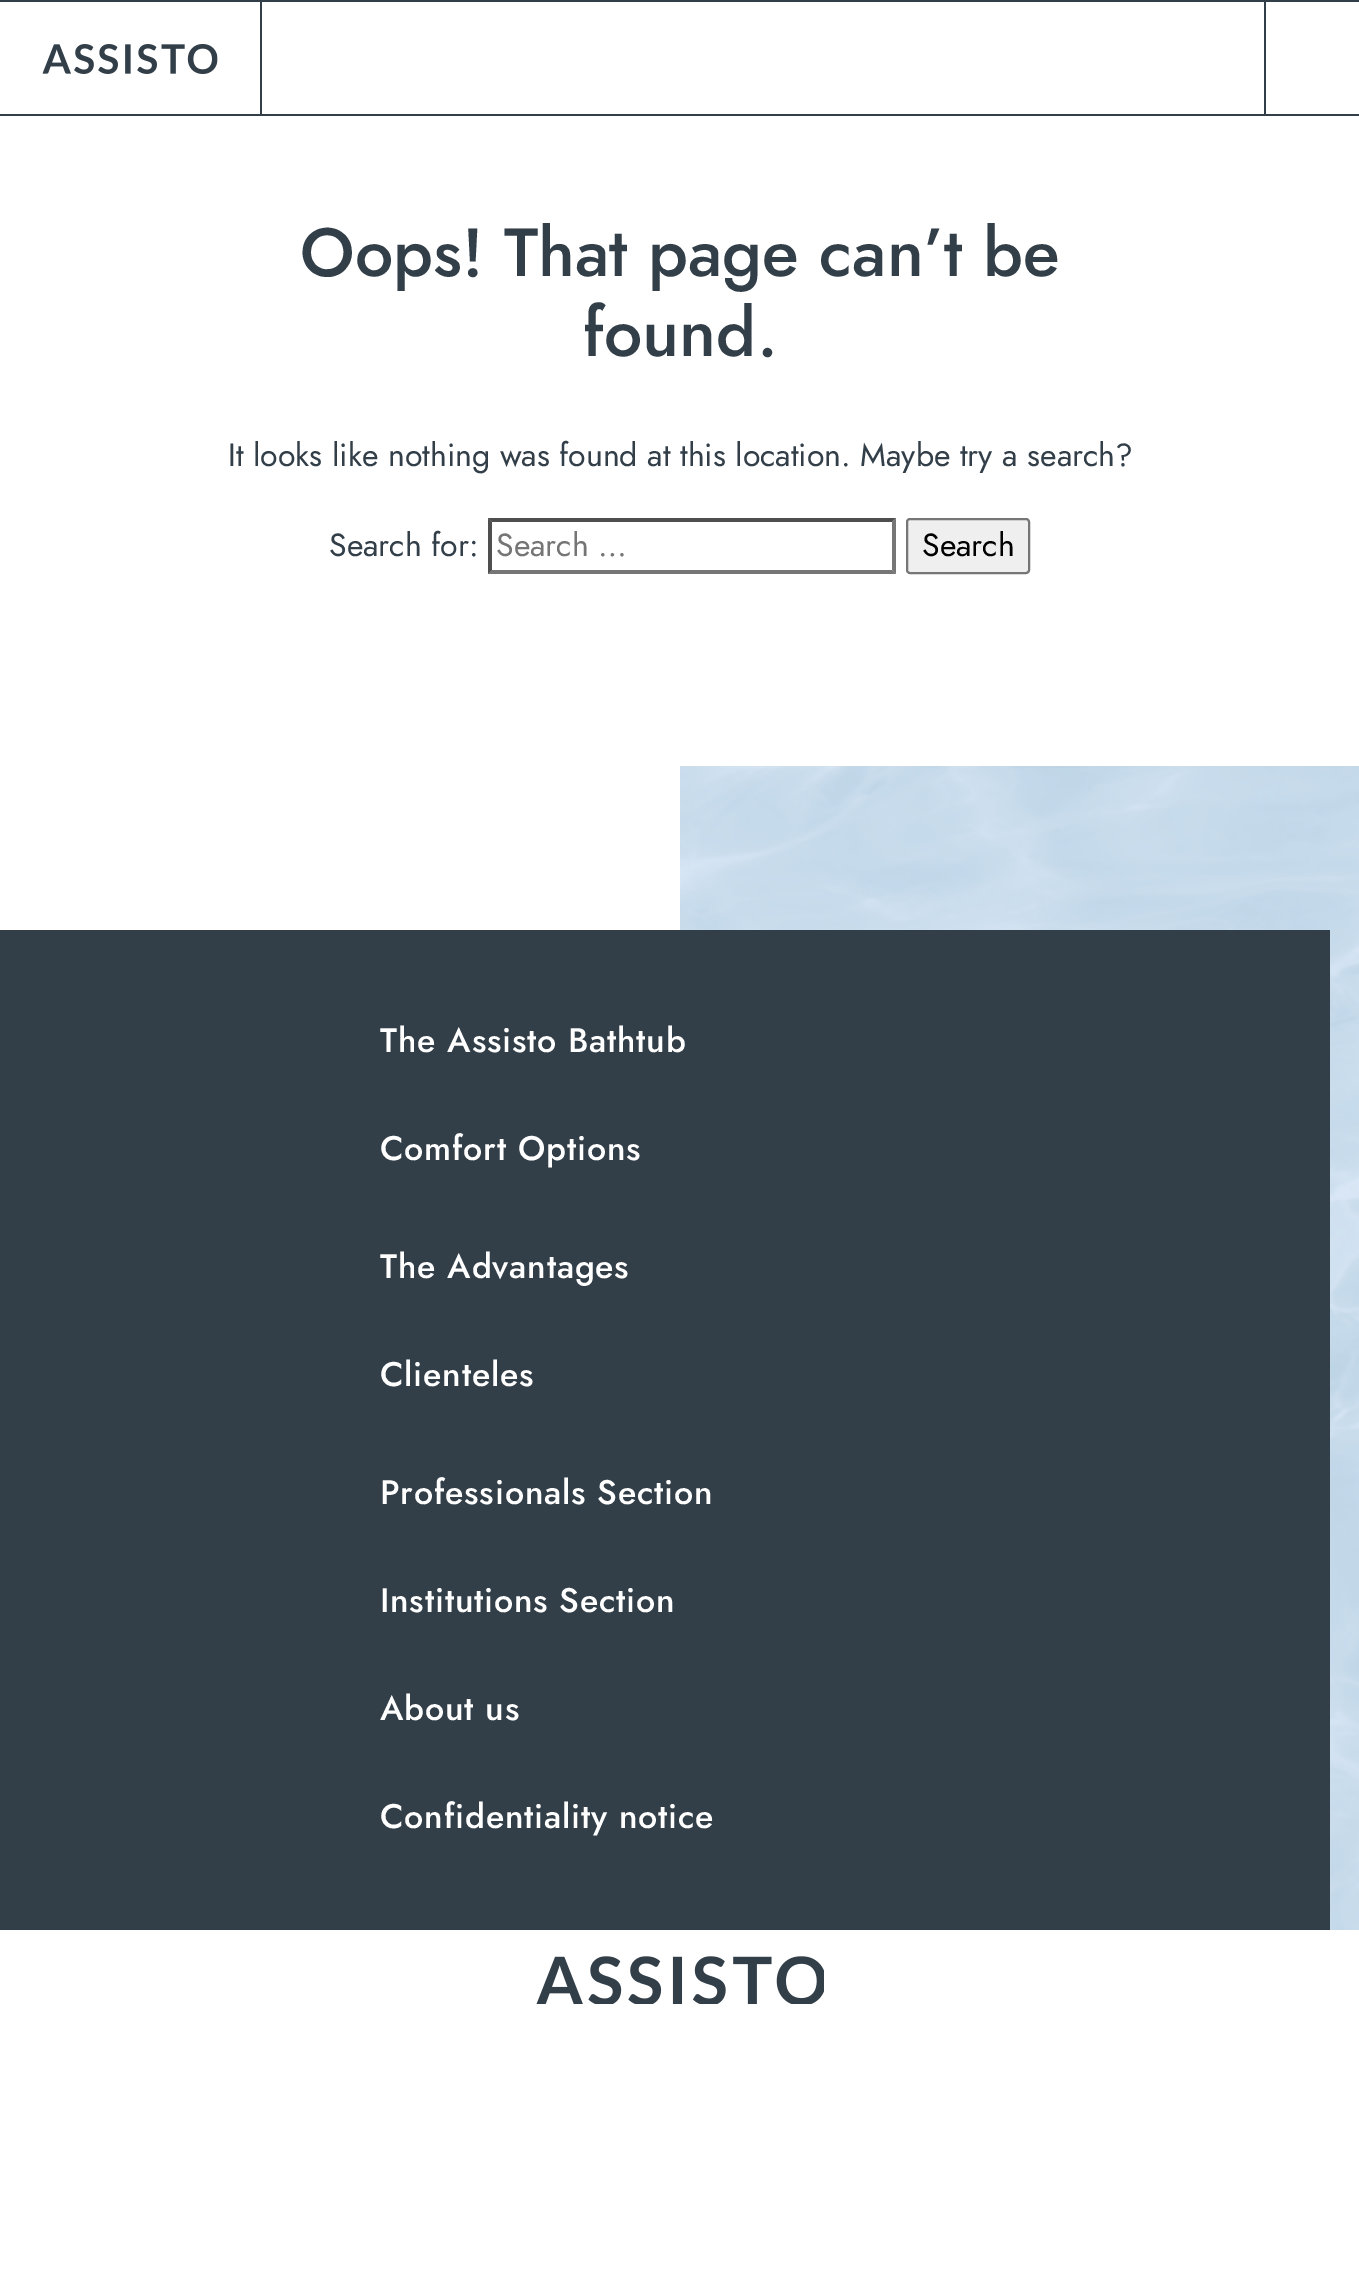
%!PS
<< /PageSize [1359 2278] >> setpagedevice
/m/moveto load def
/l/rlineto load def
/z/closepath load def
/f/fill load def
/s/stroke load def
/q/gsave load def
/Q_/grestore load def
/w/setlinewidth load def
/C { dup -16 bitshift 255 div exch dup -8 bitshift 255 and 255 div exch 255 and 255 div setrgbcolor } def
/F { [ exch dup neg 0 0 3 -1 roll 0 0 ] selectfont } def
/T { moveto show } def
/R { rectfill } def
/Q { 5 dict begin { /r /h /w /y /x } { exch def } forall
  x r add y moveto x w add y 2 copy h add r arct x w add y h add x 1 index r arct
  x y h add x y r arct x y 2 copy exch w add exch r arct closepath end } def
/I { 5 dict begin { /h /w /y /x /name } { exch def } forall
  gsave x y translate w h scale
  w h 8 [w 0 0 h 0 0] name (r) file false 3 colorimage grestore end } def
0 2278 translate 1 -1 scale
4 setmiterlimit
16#FFFFFF C
0 0 1359 2278 R
16#323E48 C
0 0 1359 2 R
0 114 1359 2 R
260 2 2 112 R
(1.rgb) 42 44 176 30 I
1264 2 2 112 R
/Jost-Medium 68 F
(Oops! That page can’t be) 300 276 T
(found.) 583 356 T
/Jost-Regular 32 F
(It looks like nothing was found at this location. Maybe try a search?) 228 466 T
(Search for:) 329 556 T
16#4F4F4F C
488 518 m 408 0 l -4 4 l -400 0 l z f
16#767676 C
896 518 m 0 56 l -4 -4 l 0 -48 l z f
896 574 m -408 0 l 4 -4 l 400 0 l z f
16#4F4F4F C
488 574 m 0 -56 l 4 4 l 0 48 l z f
16#757575 C
(Search …) 496 556 T
16#EFEFEF C
907 519 122 54 3 Q q f Q_
16#767676 C
2 w
s
16#000000 C
(Search) 922 556 T
16#323E48 C
0 930 30 1000 R
(2.rgb) 680 766 679 1164 I
30 930 1300 1000 R
/Jost-Medium 34 F
16#FFFFFF C
380 1052 m .8 0 (The Assisto Bathtub) ashow
380 1160 m .8 0 (Comfort Options) ashow
380 1278 m .8 0 (The Advantages) ashow
380 1386 m .8 0 (Clienteles) ashow
380 1504 m .8 0 (Professionals Section) ashow
380 1612 m .8 0 (Institutions Section) ashow
380 1720 m .8 0 (About us) ashow
380 1828 m .8 0 (Confidentiality notice) ashow
(3.rgb) 536 1956 288 48 I
showpage
